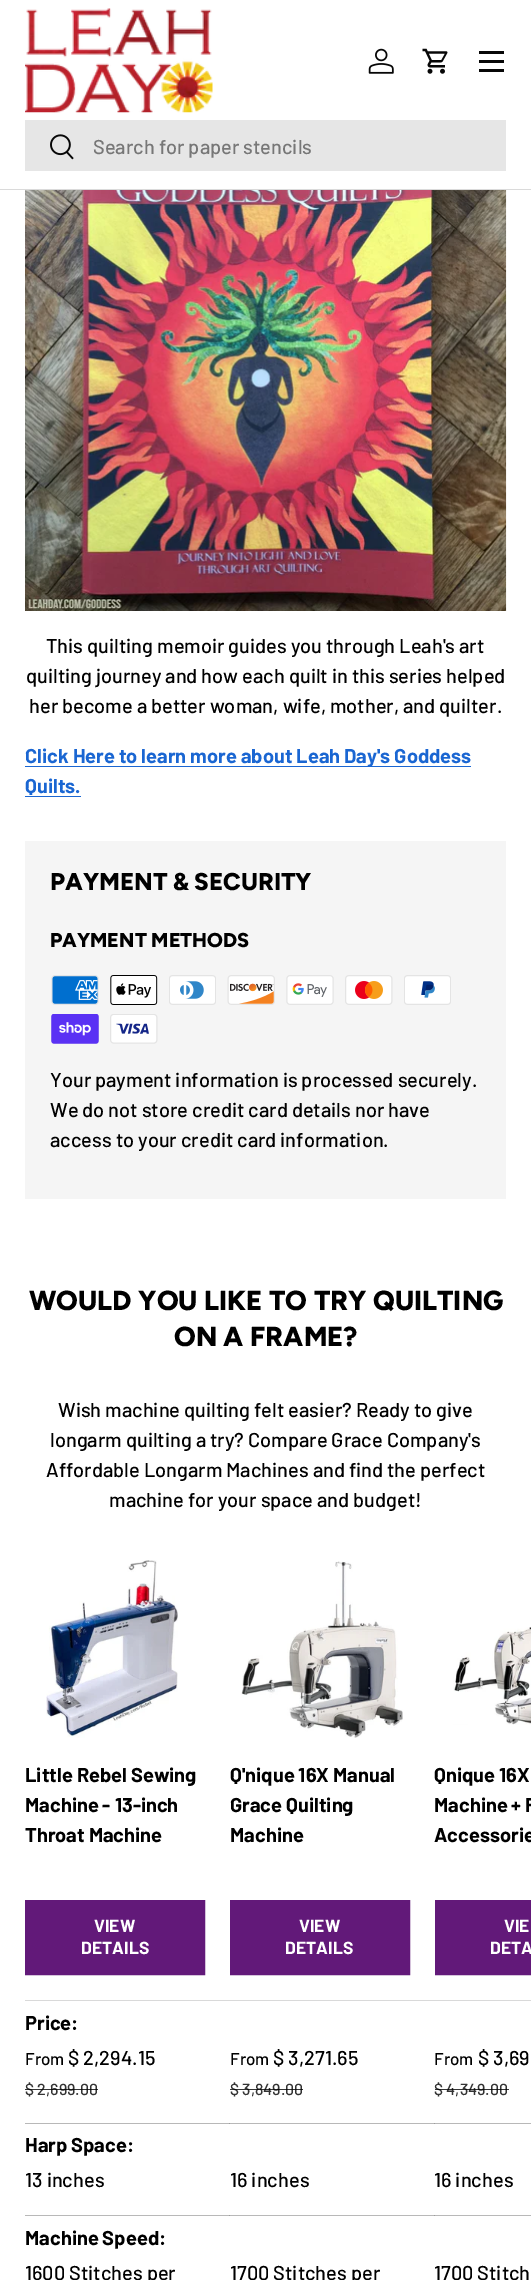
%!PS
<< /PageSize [531 2280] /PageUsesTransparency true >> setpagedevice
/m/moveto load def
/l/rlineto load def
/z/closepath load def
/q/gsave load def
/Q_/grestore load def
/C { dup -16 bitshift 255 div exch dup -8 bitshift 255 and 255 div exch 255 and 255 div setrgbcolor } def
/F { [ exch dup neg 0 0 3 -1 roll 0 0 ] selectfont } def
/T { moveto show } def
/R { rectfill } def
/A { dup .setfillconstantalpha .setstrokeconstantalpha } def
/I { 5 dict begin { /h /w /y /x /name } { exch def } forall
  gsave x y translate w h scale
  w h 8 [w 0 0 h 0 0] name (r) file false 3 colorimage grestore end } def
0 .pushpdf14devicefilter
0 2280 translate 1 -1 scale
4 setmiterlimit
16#FFFFFF C
0 0 531 2280 R
16#DADADA C
0 189 531 1 R
(1.rgb) 25 8 188 105 I
(2.rgb) 368 48 26 26 I
(3.rgb) 422 48 26 26 I
16#070707 C
479 51 25 3 R
479 69 25 3 R
479 60 25 3 R
16#E6E6E6 C
25 120 481 51 R
(4.rgb) 50 134 24 26 I
/Barlow-Medium 20 F
16#777777 C
(Search for paper stencils) 93 154 T
(5.rgb) 25 190 482 421 I
16#000000 C
(This quilting memoir guides you through Leah's art) 46 653 T
(quilting journey and how each quilt in this series helped) 26 683 T
(her become a better woman, wife, mother, and quilter.) 29 713 T
16#1A66D2 C
25 766 446 1 R
/Barlow-Bold 20 F
(Click Here to learn more about Leah Day's Goddess) 25 763 T
(Quilts.) 25 793 T
25 796 56 1 R
16#F5F5F5 C
25 841 481 358 R
/Figtree-ExtraBold 24.25 F
16#000000 C
(PAYMENT & SECURITY) 50 890 T
/Figtree-ExtraBold 20 F
(PAYMENT METHODS) 50 947 T
(6.rgb) 51 975 48 30 I
(7.rgb) 110 975 48 30 I
(8.rgb) 169 975 47 30 I
(9.rgb) 227 975 48 30 I
(10.rgb) 286 975 48 30 I
(11.rgb) 345 975 48 30 I
(12.rgb) 404 975 47 30 I
(13.rgb) 51 1014 48 30 I
(14.rgb) 110 1014 48 30 I
/Barlow-Medium 20 F
(Your payment information is processed securely.) 50 1087 T
(We do not store credit card details nor have) 50 1117 T
(access to your credit card information.) 50 1147 T
/Figtree-ExtraBold 27.5 F
(WOULD YOU LIKE TO TRY QUILTING) 29 1310 T
(ON A FRAME?) 174 1346 T
/Barlow-Medium 20 F
(Wish machine quilting felt easier? Ready to give) 58 1417 T
(longarm quilting a try? Compare Grace Company's) 50 1447 T
(Affordable Longarm Machines and find the perfect) 46 1477 T
(machine for your space and budget!) 109 1507 T
(15.rgb) 46 1560 132 178 I
/Barlow-Bold 20 F
(Little Rebel Sewing) 25 1782 T
(Machine - 13-inch) 25 1812 T
(Throat Machine) 25 1842 T
q 26 1901 m 178 0 l 0 73 l -178 0 l z clip newpath
<< /ShadingType 2 /ColorSpace /DeviceRGB /Coords [-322 1873 197 2002] /Extend [true true] /Function << /FunctionType 3 /Domain [0 1] /Functions [<< /FunctionType 2 /Domain [0 1] /C0 [.514 .255 .596] /C1 [.514 .255 .596] /N 1 >> << /FunctionType 2 /Domain [0 1] /C0 [.384 .098 .475] /C1 [.384 .098 .475] /N 1 >>] /Bounds [.6] /Encode [0 1 0 1] >> >> shfill Q_
16#621979 C
25.5 1900.5 179 74 rectstroke
/Barlow-Bold 17.5 F
16#FFFFFF C
(VIEW) 94 1932 T
(DETAILS) 81 1954 T
(16.rgb) 241 1561 162 177 I
/Barlow-Bold 20 F
16#000000 C
(Q'nique 16X Manual) 230 1782 T
(Grace Quilting) 230 1812 T
(Machine) 230 1842 T
q 231 1901 m 178 0 l 0 73 l -178 0 l z clip newpath
<< /ShadingType 2 /ColorSpace /DeviceRGB /Coords [-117 1873 402 2002] /Extend [true true] /Function << /FunctionType 3 /Domain [0 1] /Functions [<< /FunctionType 2 /Domain [0 1] /C0 [.514 .255 .596] /C1 [.514 .255 .596] /N 1 >> << /FunctionType 2 /Domain [0 1] /C0 [.384 .098 .475] /C1 [.384 .098 .475] /N 1 >>] /Bounds [.6] /Encode [0 1 0 1] >> >> shfill Q_
16#621979 C
230.5 1900.5 179 74 rectstroke
/Barlow-Bold 17.5 F
16#FFFFFF C
(VIEW) 299 1932 T
(DETAILS) 285 1954 T
(17.rgb) 453 1627 78 98 I
/Barlow-Bold 20 F
16#000000 C
(Qnique 16X) 434 1782 T
(Machine + F) 434 1812 T
(Accessorie) 434 1842 T
q 436 1901 m 95 0 l 0 73 l -95 0 l z clip newpath
<< /ShadingType 2 /ColorSpace /DeviceRGB /Coords [91 1873 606 2002] /Extend [true true] /Function << /FunctionType 3 /Domain [0 1] /Functions [<< /FunctionType 2 /Domain [0 1] /C0 [.514 .255 .596] /C1 [.514 .255 .596] /N 1 >> << /FunctionType 2 /Domain [0 1] /C0 [.384 .098 .475] /C1 [.384 .098 .475] /N 1 >>] /Bounds [.6] /Encode [0 1 0 1] >> >> shfill Q_
16#621979 C
435.5 1900.5 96 74 rectstroke
/Barlow-Bold 17.5 F
16#FFFFFF C
(VIE) 504 1932 T
(DETA) 490 1954 T
16#D9D9D9 C
25 2000 506 1 R
/Barlow-Bold 20 F
16#000000 C
(Price:) 25 2030 T
/Barlow-Medium 17 F
(From) 25 2065 T
/Barlow-Medium 20 F
($ 2,294.15) 68 2065 T
/Barlow-Medium 16 F
16#333333 C
($ 2,699.00) 25 2095 T
0.8 A
16#000000 C
25 2089 73 1 R
/Barlow-Medium 17 F
1 A
(From) 230 2065 T
/Barlow-Medium 20 F
($ 3,271.65) 273 2065 T
/Barlow-Medium 16 F
16#333333 C
($ 3,849.00) 230 2095 T
0.8 A
16#000000 C
230 2089 73 1 R
1 A
16#B8B8B8 C
25 2123 506 1 R
16#9C9C9C C
434 2123 1 1 R
/Barlow-Medium 17 F
16#000000 C
(From) 434 2065 T
/Barlow-Medium 20 F
($ 3,69) 478 2065 T
/Barlow-Medium 16 F
16#333333 C
($ 4,349.00) 434 2095 T
0.8 A
16#000000 C
435 2089 74 1 R
1 A
16#9C9C9C C
229 2123 1 1 R
/Barlow-Bold 20 F
16#000000 C
(Harp Space:) 25 2152 T
/Barlow-Medium 20 F
(13 inches) 25 2187 T
(16 inches) 230 2187 T
16#B8B8B8 C
25 2215 506 1 R
16#9C9C9C C
434 2215 1 1 R
16#000000 C
(16 inches) 434 2187 T
16#9C9C9C C
229 2215 1 1 R
/Barlow-Bold 20 F
16#000000 C
(Machine Speed:) 25 2245 T
/Barlow-Medium 20 F
(1600 Stitches per) 25 2280 T
(1700 Stitches per) 230 2280 T
(1700 Stitch) 434 2280 T
.poppdf14devicefilter showpage
